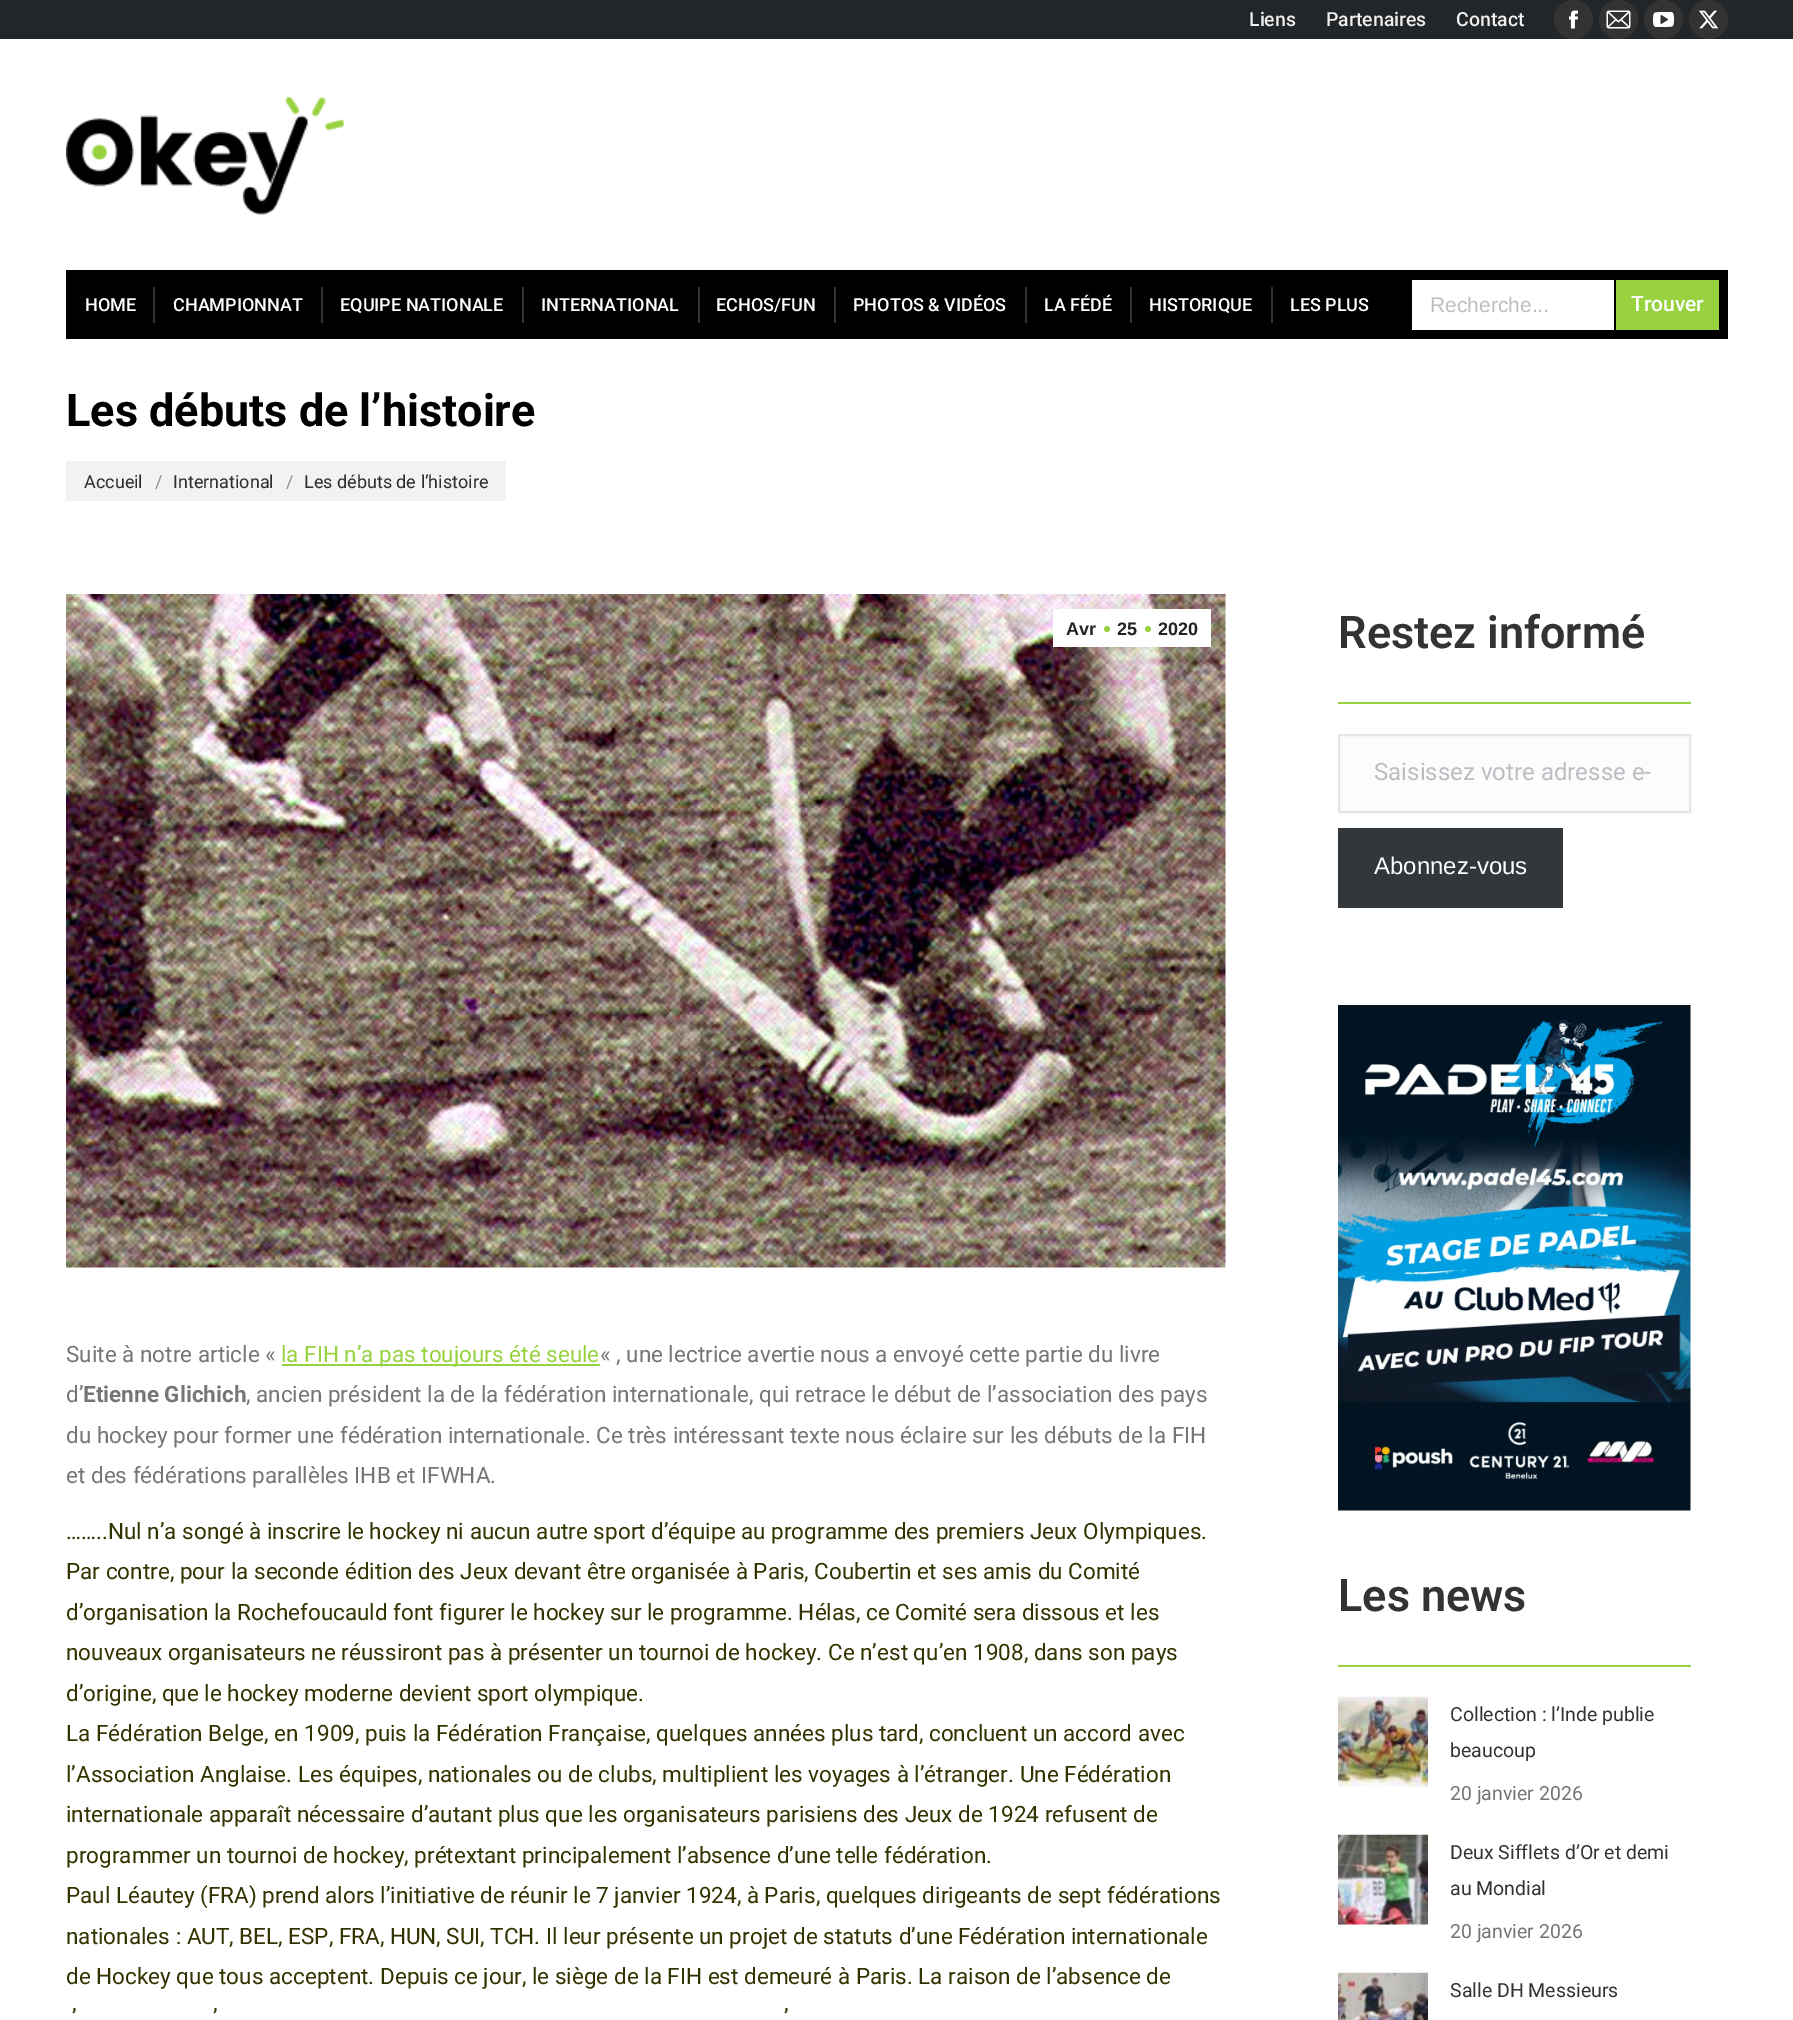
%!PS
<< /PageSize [1793 2020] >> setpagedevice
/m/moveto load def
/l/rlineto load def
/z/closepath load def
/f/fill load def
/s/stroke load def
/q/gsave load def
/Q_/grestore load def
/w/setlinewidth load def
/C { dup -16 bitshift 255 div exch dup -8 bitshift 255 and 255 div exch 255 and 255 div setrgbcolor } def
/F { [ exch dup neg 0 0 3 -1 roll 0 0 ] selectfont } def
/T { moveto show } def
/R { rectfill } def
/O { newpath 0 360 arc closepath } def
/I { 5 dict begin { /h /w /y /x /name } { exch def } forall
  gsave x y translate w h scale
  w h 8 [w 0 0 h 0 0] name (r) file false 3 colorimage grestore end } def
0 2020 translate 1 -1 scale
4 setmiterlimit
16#FFFFFF C
0 0 1793 2020 R
16#232629 C
0 0 1793 39 R
/Roboto-Medium 19.5 F
16#EFEFEF C
(Liens) 1249 26 T
(Partenaires) 1326 26 T
(Contact) 1456 26 T
16#333333 C
1573.5 19.5 19.5 O f
(1.rgb) 1568 10 11 19 I
1618.5 19.5 19.5 O f
(2.rgb) 1606 10 25 19 I
1663.5 19.5 19.5 O f
(3.rgb) 1653 12 21 15 I
1708.5 19.5 19.5 O f
(4.rgb) 1698 10 21 19 I
(5.rgb) 66 96 278 119 I
16#000000 C
66 270 1662 69 R
/Roboto-Medium 18 F
16#FFFFFF C
(HOME) 85 311 T
16#333333 C
153 287 2 36 R
16#FFFFFF C
(CHAMPIONNAT) 173 311 T
16#333333 C
321 287 2 36 R
16#FFFFFF C
(EQUIPE NATIONALE) 340 311 T
16#333333 C
522 287 2 36 R
16#FFFFFF C
(INTERNATIONAL) 541 311 T
16#333333 C
698 287 2 36 R
16#FFFFFF C
(ECHOS/FUN) 716 311 T
16#333333 C
834 287 2 36 R
16#FFFFFF C
(PHOTOS & VIDÉOS) 853 311 T
16#333333 C
1025 287 2 36 R
16#FFFFFF C
(LA FÉDÉ) 1044 311 T
16#333333 C
1130 287 2 36 R
16#FFFFFF C
(HISTORIQUE) 1149 311 T
16#333333 C
1271 287 2 36 R
16#FFFFFF C
(LES PLUS) 1290 311 T
1412 280 202 50 R
/LiberationSans-Regular 21 F
16#BABDC1 C
(Recherche...) 1430 312 T
16#99D240 C
1616 280 103 50 R
/Roboto-Medium 21 F
16#FFFFFF C
(Trouver) 1631 311 T
/Roboto-Bold 45 F
16#000000 C
(Les débuts de l’histoire) 66 426 T
16#F2F2F2 C
66 461 440 40 R
/Roboto-Regular 18 F
16#2D2D2D C
(Accueil) 84 488 T
16#909090 C
(/) 155 488 T
16#2D2D2D C
(International) 173 488 T
16#909090 C
(/) 286 488 T
16#2D2D2D C
(Les débuts de l’histoire) 304 488 T
(6.rgb) 66 594 1160 674 I
16#FFFFFF C
1053 609 158 38 R
/LiberationSans-Bold 18 F
16#222222 C
(Avr) 1066 635 T
16#99D240 C
1107 629 3 O f
16#222222 C
(25) 1117 635 T
16#99D240 C
1148 629 3 O f
16#222222 C
(2020) 1158 635 T
/Roboto-Regular 22.5 F
16#757575 C
(Suite à notre article «) 66 1362 T
16#99D240 C
282 1364 318 2 R
(la FIH n’a pas toujours été seule) 281 1362 T
16#757575 C
(« , une lectrice avertie nous a envoyé cette partie du livre) 600 1362 T
(d’) 66 1402 T
/Roboto-Bold 22.5 F
(Etienne Glichich) 83 1402 T
/Roboto-Regular 22.5 F
(, ancien président la de la fédération internationale, qui retrace le début de l’association des pays) 246 1402 T
(du hockey pour former une fédération internationale. Ce très intéressant texte nous éclaire sur les débuts de la FIH) 66 1443 T
(et des fédérations parallèles IHB et IFWHA.) 66 1483 T
16#333300 C
(……..Nul n’a songé à inscrire le hockey ni aucun autre sport d’équipe au programme des premiers Jeux Olympiques.) 66 1539 T
(Par contre, pour la seconde édition des Jeux devant être organisée à Paris, Coubertin et ses amis du Comité) 66 1579 T
(d’organisation la Rochefoucauld font figurer le hockey sur le programme. Hélas, ce Comité sera dissous et les) 66 1620 T
(nouveaux organisateurs ne réussiront pas à présenter un tournoi de hockey. Ce n’est qu’en 1908, dans son pays) 66 1660 T
(d’origine, que le hockey moderne devient sport olympique.) 66 1701 T
(La Fédération Belge, en 1909, puis la Fédération Française, quelques années plus tard, concluent un accord avec) 66 1741 T
(l’Association Anglaise. Les équipes, nationales ou de clubs, multiplient les voyages à l’étranger. Une Fédération) 66 1782 T
(internationale apparaît nécessaire d’autant plus que les organisateurs parisiens des Jeux de 1924 refusent de) 66 1822 T
(programmer un tournoi de hockey, prétextant principalement l’absence d’une telle fédération.) 66 1863 T
(Paul Léautey \(FRA\) prend alors l’initiative de réunir le 7 janvier 1924, à Paris, quelques dirigeants de sept fédérations) 66 1903 T
(nationales : AUT, BEL, ESP, FRA, HUN, SUI, TCH. Il leur présente un projet de statuts d’une Fédération internationale) 66 1944 T
(de Hockey que tous acceptent. Depuis ce jour, le siège de la FIH est demeuré à Paris. La raison de l’absence de) 66 1984 T
(’) 72 2025 T
(’) 213 2025 T
(’) 784 2025 T
/Roboto-SemiBold 45 F
16#333333 C
(Restez informé) 1338 648 T
16#99D240 C
1338 702 353 2 R
16#FCFCFC C
1339 735 m 351 0 l 0 77 l -351 0 l z q f Q_
16#E4E5E7 C
2 w
s
/Roboto-Regular 24 F
16#BABDC1 C
(Saisissez votre adresse e-) 1374 780 T
16#32373C C
1338 828 225 80 R
/LiberationSans-Regular 24 F
16#FFFFFF C
(Abonnez-vous) 1374 874 T
(7.rgb) 1338 1005 353 506 I
/Roboto-SemiBold 45 F
16#333333 C
(Les news) 1338 1611 T
16#99D240 C
1338 1665 353 2 R
(8.rgb) 1338 1696 90 91 I
/Roboto-Regular 19.5 F
16#333333 C
(Collection : l’Inde publie) 1450 1721 T
(beaucoup) 1450 1757 T
16#757575 C
(20 janvier 2026) 1450 1800 T
(9.rgb) 1338 1834 90 91 I
16#333333 C
(Deux Sifflets d’Or et demi) 1450 1859 T
(au Mondial) 1450 1895 T
16#757575 C
(20 janvier 2026) 1450 1938 T
(10.rgb) 1338 1972 90 48 I
16#333333 C
(Salle DH Messieurs) 1450 1997 T
showpage
